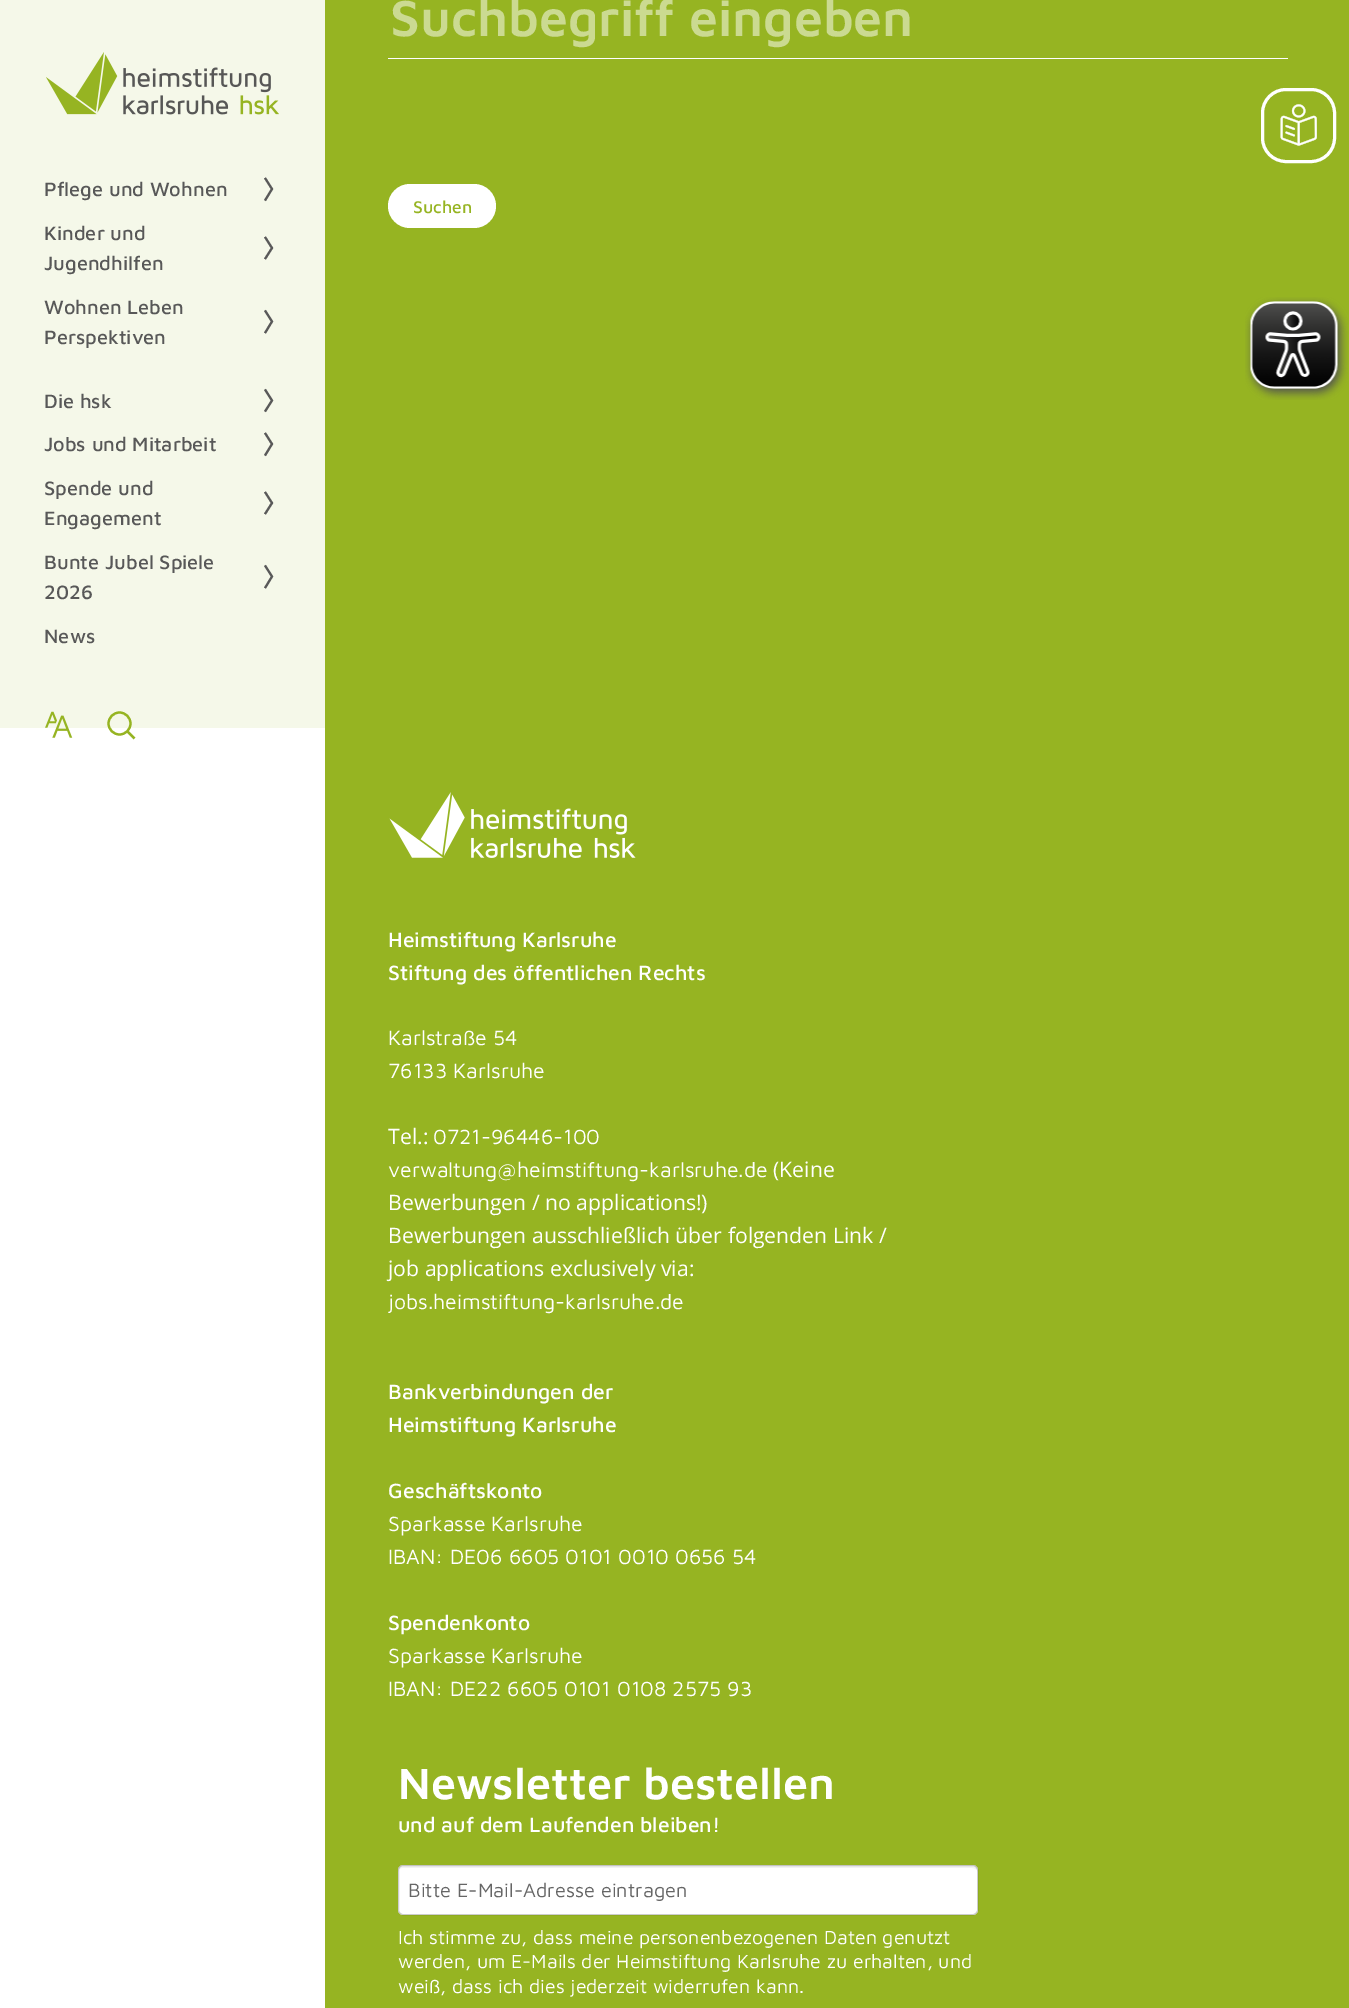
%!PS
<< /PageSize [1349 2008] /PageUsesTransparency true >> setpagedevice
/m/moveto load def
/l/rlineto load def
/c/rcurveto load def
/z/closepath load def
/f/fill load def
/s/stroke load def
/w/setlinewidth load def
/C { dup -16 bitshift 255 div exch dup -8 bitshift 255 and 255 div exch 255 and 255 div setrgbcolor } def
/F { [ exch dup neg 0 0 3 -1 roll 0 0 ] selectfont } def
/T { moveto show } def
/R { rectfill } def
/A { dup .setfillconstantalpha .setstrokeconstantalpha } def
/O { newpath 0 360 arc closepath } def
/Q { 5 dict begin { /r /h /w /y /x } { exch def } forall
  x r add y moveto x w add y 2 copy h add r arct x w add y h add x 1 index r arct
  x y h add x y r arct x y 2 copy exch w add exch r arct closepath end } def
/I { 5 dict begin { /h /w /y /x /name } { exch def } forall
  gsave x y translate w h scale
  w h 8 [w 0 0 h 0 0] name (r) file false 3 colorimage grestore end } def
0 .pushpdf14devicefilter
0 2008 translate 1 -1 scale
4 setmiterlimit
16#FFFFFF C
0 0 1349 2008 R
16#96B422 C
325 0 1024 2008 R
16#F5F8E9 C
0 0 325 728 R
16#FFFFFF C
388 58 900 1 R
/MavenPro-SemiBold 52 F
16#CBDA91 C
(Suchbegriff eingeben) 390 36 T
16#FFFFFF C
388 184 108 44 22 Q f
/MavenPro-Medium 17.5 F
16#96B422 C
(Suchen) 413 213 T
(1.rgb) 389 792 247 66 I
/MavenPro-Medium 21.25 F
16#FFFFFF C
(Heimstiftung Karlsruhe) 388 947 T
(Stiftung des öffentlichen Rechts) 388 980 T
/MavenPro-Regular 21.25 F
(Karlstraße 54) 388 1045 T
(76133 Karlsruhe) 388 1078 T
/OpenSans-Regular 21.25 F
(Tel.:) 388 1144 T
/MavenPro-Regular 21.25 F
(0721-96446-100) 433 1144 T
(verwaltung@heimstiftung-karlsruhe.de) 388 1177 T
/OpenSans-Regular 21.25 F
(\(Keine) 773 1177 T
(Bewerbungen / no applications!\)) 388 1210 T
(Bewerbungen ausschließlich über folgenden Link /) 388 1243 T
(job applications exclusively via:) 388 1276 T
/MavenPro-Regular 21.25 F
(jobs.heimstiftung-karlsruhe.de) 388 1309 T
/MavenPro-Medium 21.25 F
(Bankverbindungen der) 388 1399 T
(Heimstiftung Karlsruhe) 388 1432 T
(Geschäftskonto) 388 1498 T
/MavenPro-Regular 21.25 F
(Sparkasse Karlsruhe) 388 1531 T
(IBAN: DE06 6605 0101 0010 0656 54) 388 1564 T
/MavenPro-Medium 21.25 F
(Spendenkonto) 388 1630 T
/MavenPro-Regular 21.25 F
(Sparkasse Karlsruhe) 388 1663 T
(IBAN: DE22 6605 0101 0108 2575 93) 388 1696 T
/MavenPro-SemiBold 45 F
(Newsletter bestellen) 398 1799 T
/MavenPro-Medium 21.25 F
(und auf dem Laufenden bleiben!) 398 1832 T
398 1865 580 50 5 Q f
0.2 A
16#000000 C
398.5 1865.5 579 49 4.5 Q s
0.05 A
402 1868 m 570 0 l 3 0 6 2 6 4 c 0 -2 l 0 -3 -2 -5 -5 -5 c -570 0 l -3 0 -5 2 -5 5 c 0 2 l 0 -2 2 -4 4 -4 c z f
/MavenPro-Regular 20 F
1 A
16#666666 C
(Bitte E-Mail-Adresse eintragen) 408 1897 T
/MavenPro-Regular 19.6 F
16#FFFFFF C
(Ich stimme zu, dass meine personenbezogenen Daten genutzt) 398 1944 T
(werden, um E-Mails der Heimstiftung Karlsruhe zu erhalten, und) 398 1968 T
(weiß, dass ich dies jederzeit widerrufen kann.) 398 1993 T
3 w
1262.5 89.5 72 72 23.5 Q s
(2.rgb) 1280 104 37 42 I
(3.rgb) 46 52 233 63 I
/MavenPro-Medium 20 F
16#585858 C
(Pflege und Wohnen) 44 196 T
16#595959 C
2.1 w
265 178 m 7 11 l -7 11.5 l s
16#585858 C
(Kinder und) 44 240 T
(Jugendhilfen) 44 270 T
16#595959 C
265 237 m 7 11 l -7 11 l s
16#585858 C
(Wohnen Leben) 44 314 T
(Perspektiven) 44 344 T
16#595959 C
265 310.5 m 7 11 l -7 11.5 l s
16#585858 C
(Die hsk) 44 408 T
16#595959 C
265 389.5 m 7 11 l -7 11 l s
16#585858 C
(Jobs und Mitarbeit) 44 451 T
16#595959 C
265 433 m 7 11 l -7 11.5 l s
16#585858 C
(Spende und) 44 495 T
(Engagement) 44 525 T
16#595959 C
265 492 m 7 11 l -7 11 l s
16#585858 C
(Bunte Jubel Spiele) 44 569 T
(2026) 44 599 T
16#595959 C
265 565.5 m 7 11 l -7 11.5 l s
16#585858 C
(News) 44 643 T
(4.rgb) 45 711 28 27 I
16#96B422 C
2.2 w
119.5 723.5 11 O s
127 731 m 7.5 7.5 l s
(5.rgb) 1245 297 103 103 I
.poppdf14devicefilter showpage
